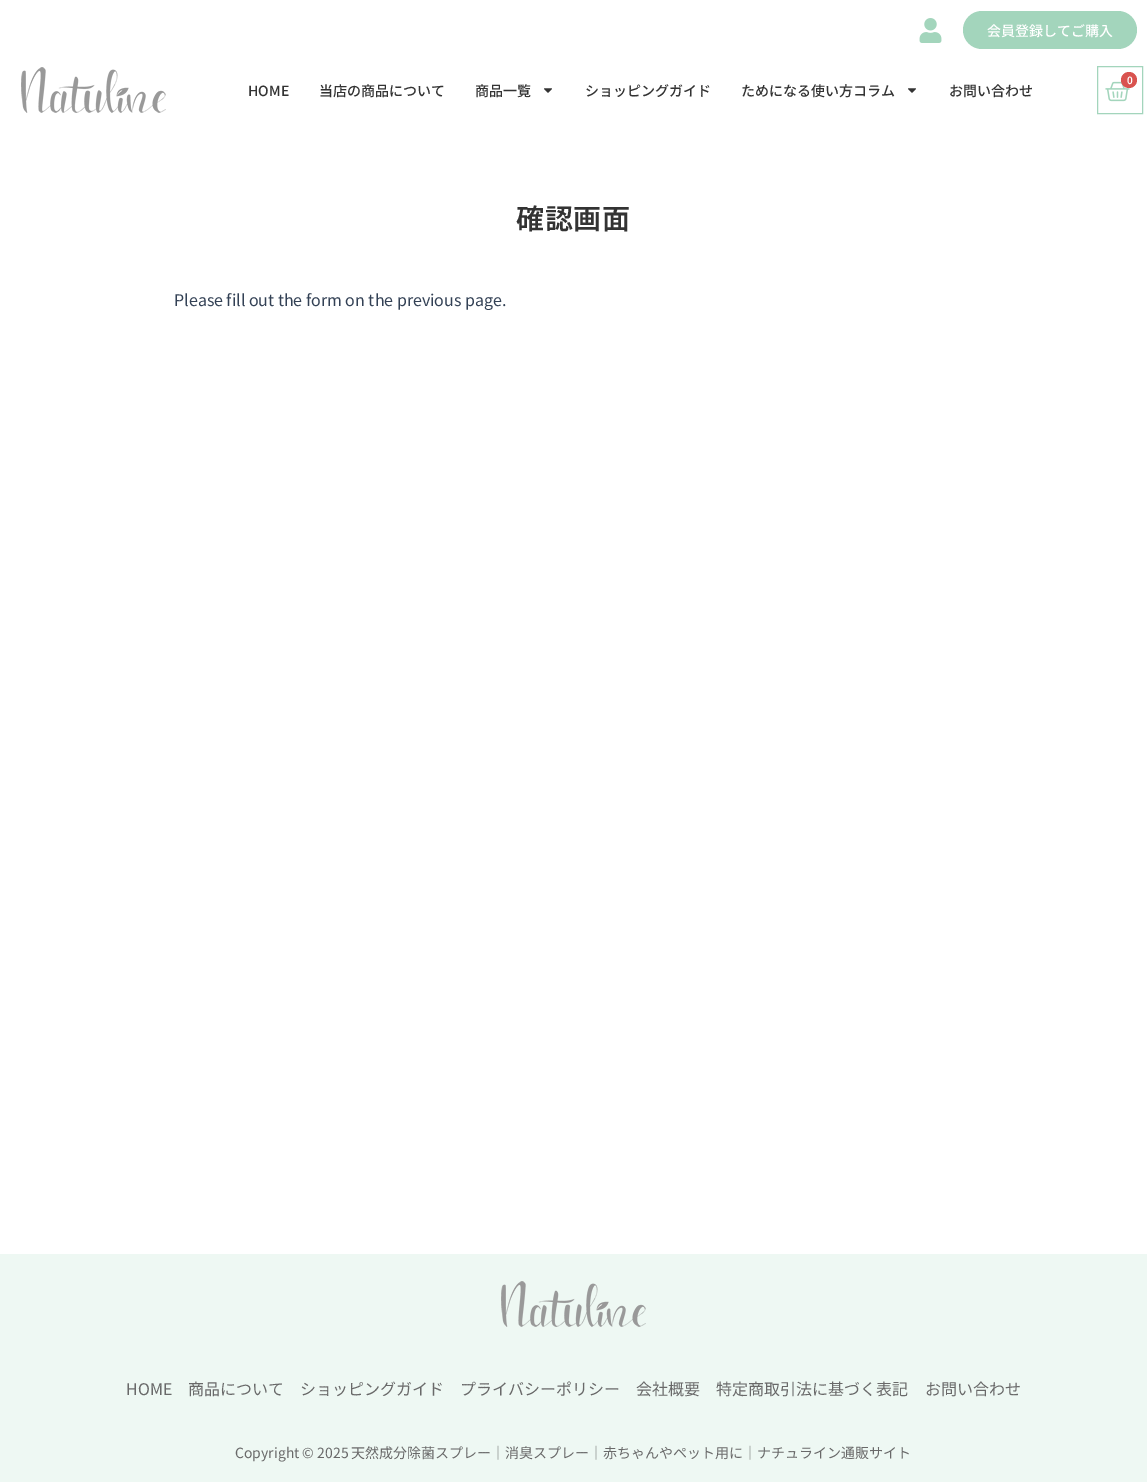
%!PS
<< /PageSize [1147 1482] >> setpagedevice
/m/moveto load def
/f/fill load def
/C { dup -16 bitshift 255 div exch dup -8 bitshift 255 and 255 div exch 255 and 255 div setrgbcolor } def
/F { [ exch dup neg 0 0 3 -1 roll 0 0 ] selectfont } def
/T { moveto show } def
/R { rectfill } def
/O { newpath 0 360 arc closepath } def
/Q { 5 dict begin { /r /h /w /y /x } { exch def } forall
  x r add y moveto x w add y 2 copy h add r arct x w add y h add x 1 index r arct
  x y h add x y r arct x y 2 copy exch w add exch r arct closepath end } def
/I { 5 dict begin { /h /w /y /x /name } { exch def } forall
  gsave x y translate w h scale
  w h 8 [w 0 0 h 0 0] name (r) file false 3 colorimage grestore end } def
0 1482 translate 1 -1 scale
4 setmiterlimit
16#FFFFFF C
0 0 1147 1482 R
(1.rgb) 919 18 23 25 I
16#A3D5BC C
963 11 174 38 19 Q f
/NotoSansJP-Medium 14 F
16#FFFFFF C
(会員登録してご購入) 987 36 T
(2.rgb) 21 67 145 46 I
16#A3D5BC C
1097.5 66.5 45 47 rectstroke
(3.rgb) 1105 81 25 21 I
16#D9534F C
1129 80 8 O f
/NotoSansJP-SemiBold 10 F
16#FFFFFF C
(0) 1127 84 T
/NotoSansJP-Medium 14 F
16#333333 C
(HOME) 248 96 T
(当店の商品について) 319 96 T
(商品一覧) 475 96 T
(4.rgb) 544 88 8 5 I
(ショッピングガイド) 585 96 T
(ためになる使い方コラム) 741 96 T
(4.rgb) 908 88 8 5 I
(お問い合わせ) 949 96 T
/NotoSansJP-SemiBold 28 F
516 229 m .5 0 (確認画面) ashow
/NotoSansJP-Regular 16 F
16#334155 C
(Please fill out the form on the previous page.) 174 306 T
16#EEF8F3 C
0 1254 1147 228 R
(5.rgb) 501 1281 145 46 I
16#696969 C
(HOME) 126 1395 T
(商品について) 188 1395 T
(ショッピングガイド) 300 1395 T
(プライバシーポリシー) 460 1395 T
(会社概要) 636 1395 T
(特定商取引法に基づく表記) 716 1395 T
(お問い合わせ) 925 1395 T
/NotoSansJP-Regular 14 F
(Copyright © 2025 天然成分除菌スプレー｜消臭スプレー｜赤ちゃんやペット用に｜ナチュライン通販サイト) 235 1458 T
showpage
